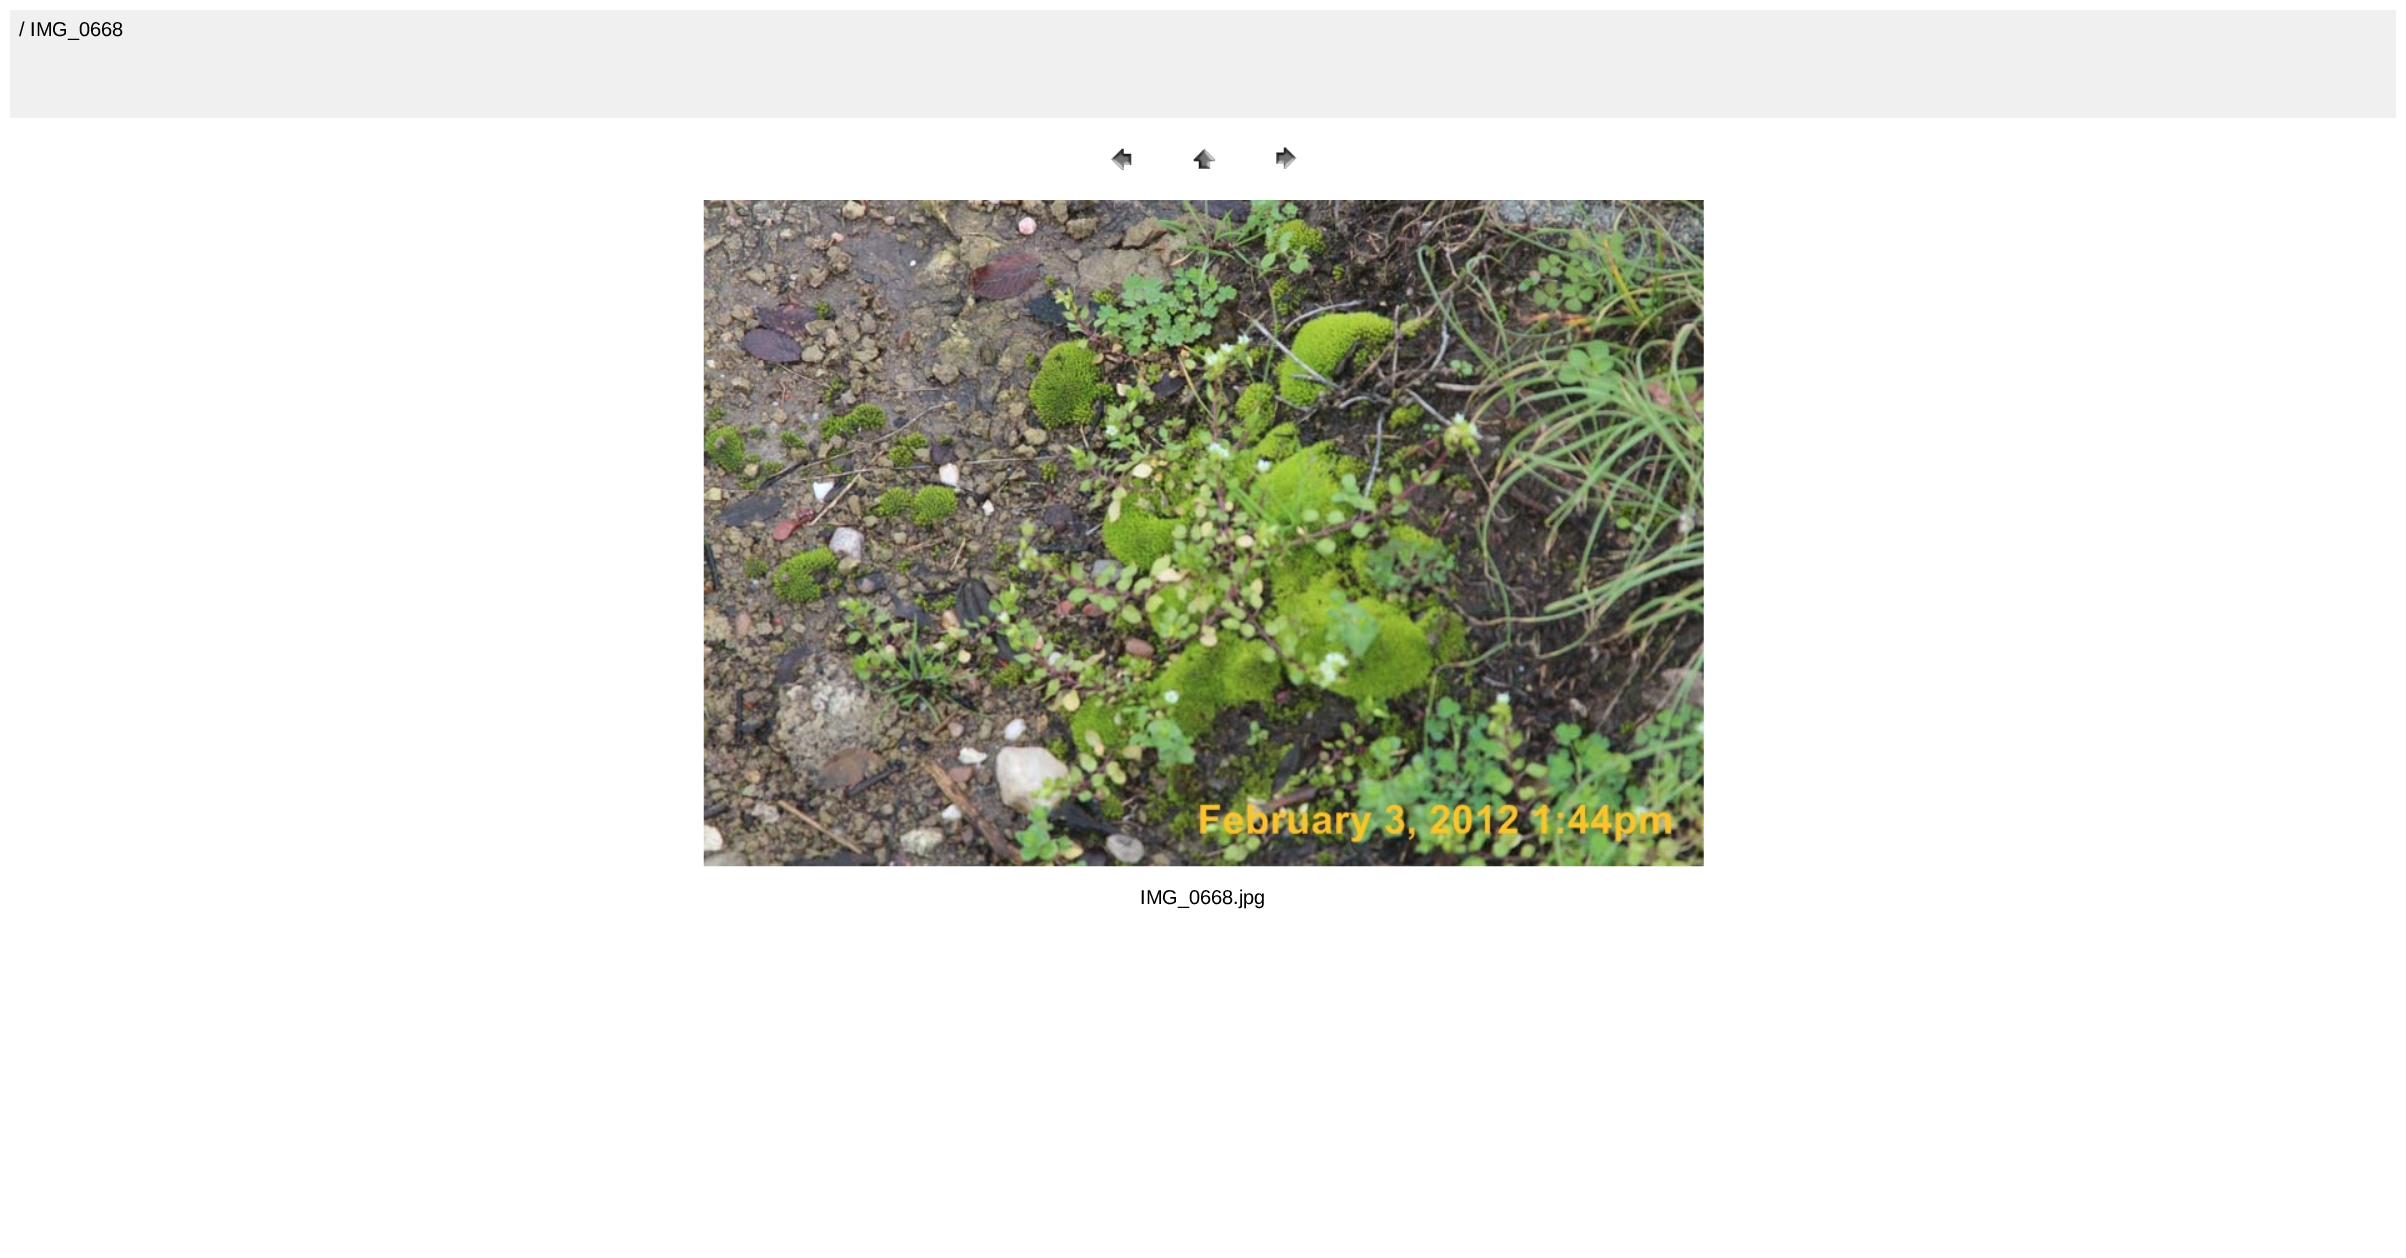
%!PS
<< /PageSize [2406 1258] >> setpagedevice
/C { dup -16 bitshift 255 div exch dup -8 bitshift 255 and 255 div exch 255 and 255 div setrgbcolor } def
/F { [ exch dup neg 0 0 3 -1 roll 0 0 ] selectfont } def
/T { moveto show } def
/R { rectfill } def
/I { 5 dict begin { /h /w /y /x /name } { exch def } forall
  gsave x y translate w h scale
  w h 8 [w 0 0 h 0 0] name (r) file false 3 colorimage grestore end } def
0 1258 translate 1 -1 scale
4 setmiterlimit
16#FFFFFF C
0 0 2406 1258 R
16#F0F0F0 C
10 10 2386 108 R
/LiberationSans-Regular 20 F
16#000000 C
(/ IMG_0668) 19 36 T
(1.rgb) 1111 148 21 23 I
(2.rgb) 1193 148 23 21 I
(3.rgb) 1276 147 21 22 I
(4.rgb) 703 200 1001 667 I
(IMG_0668.jpg) 1140 904 T
showpage
